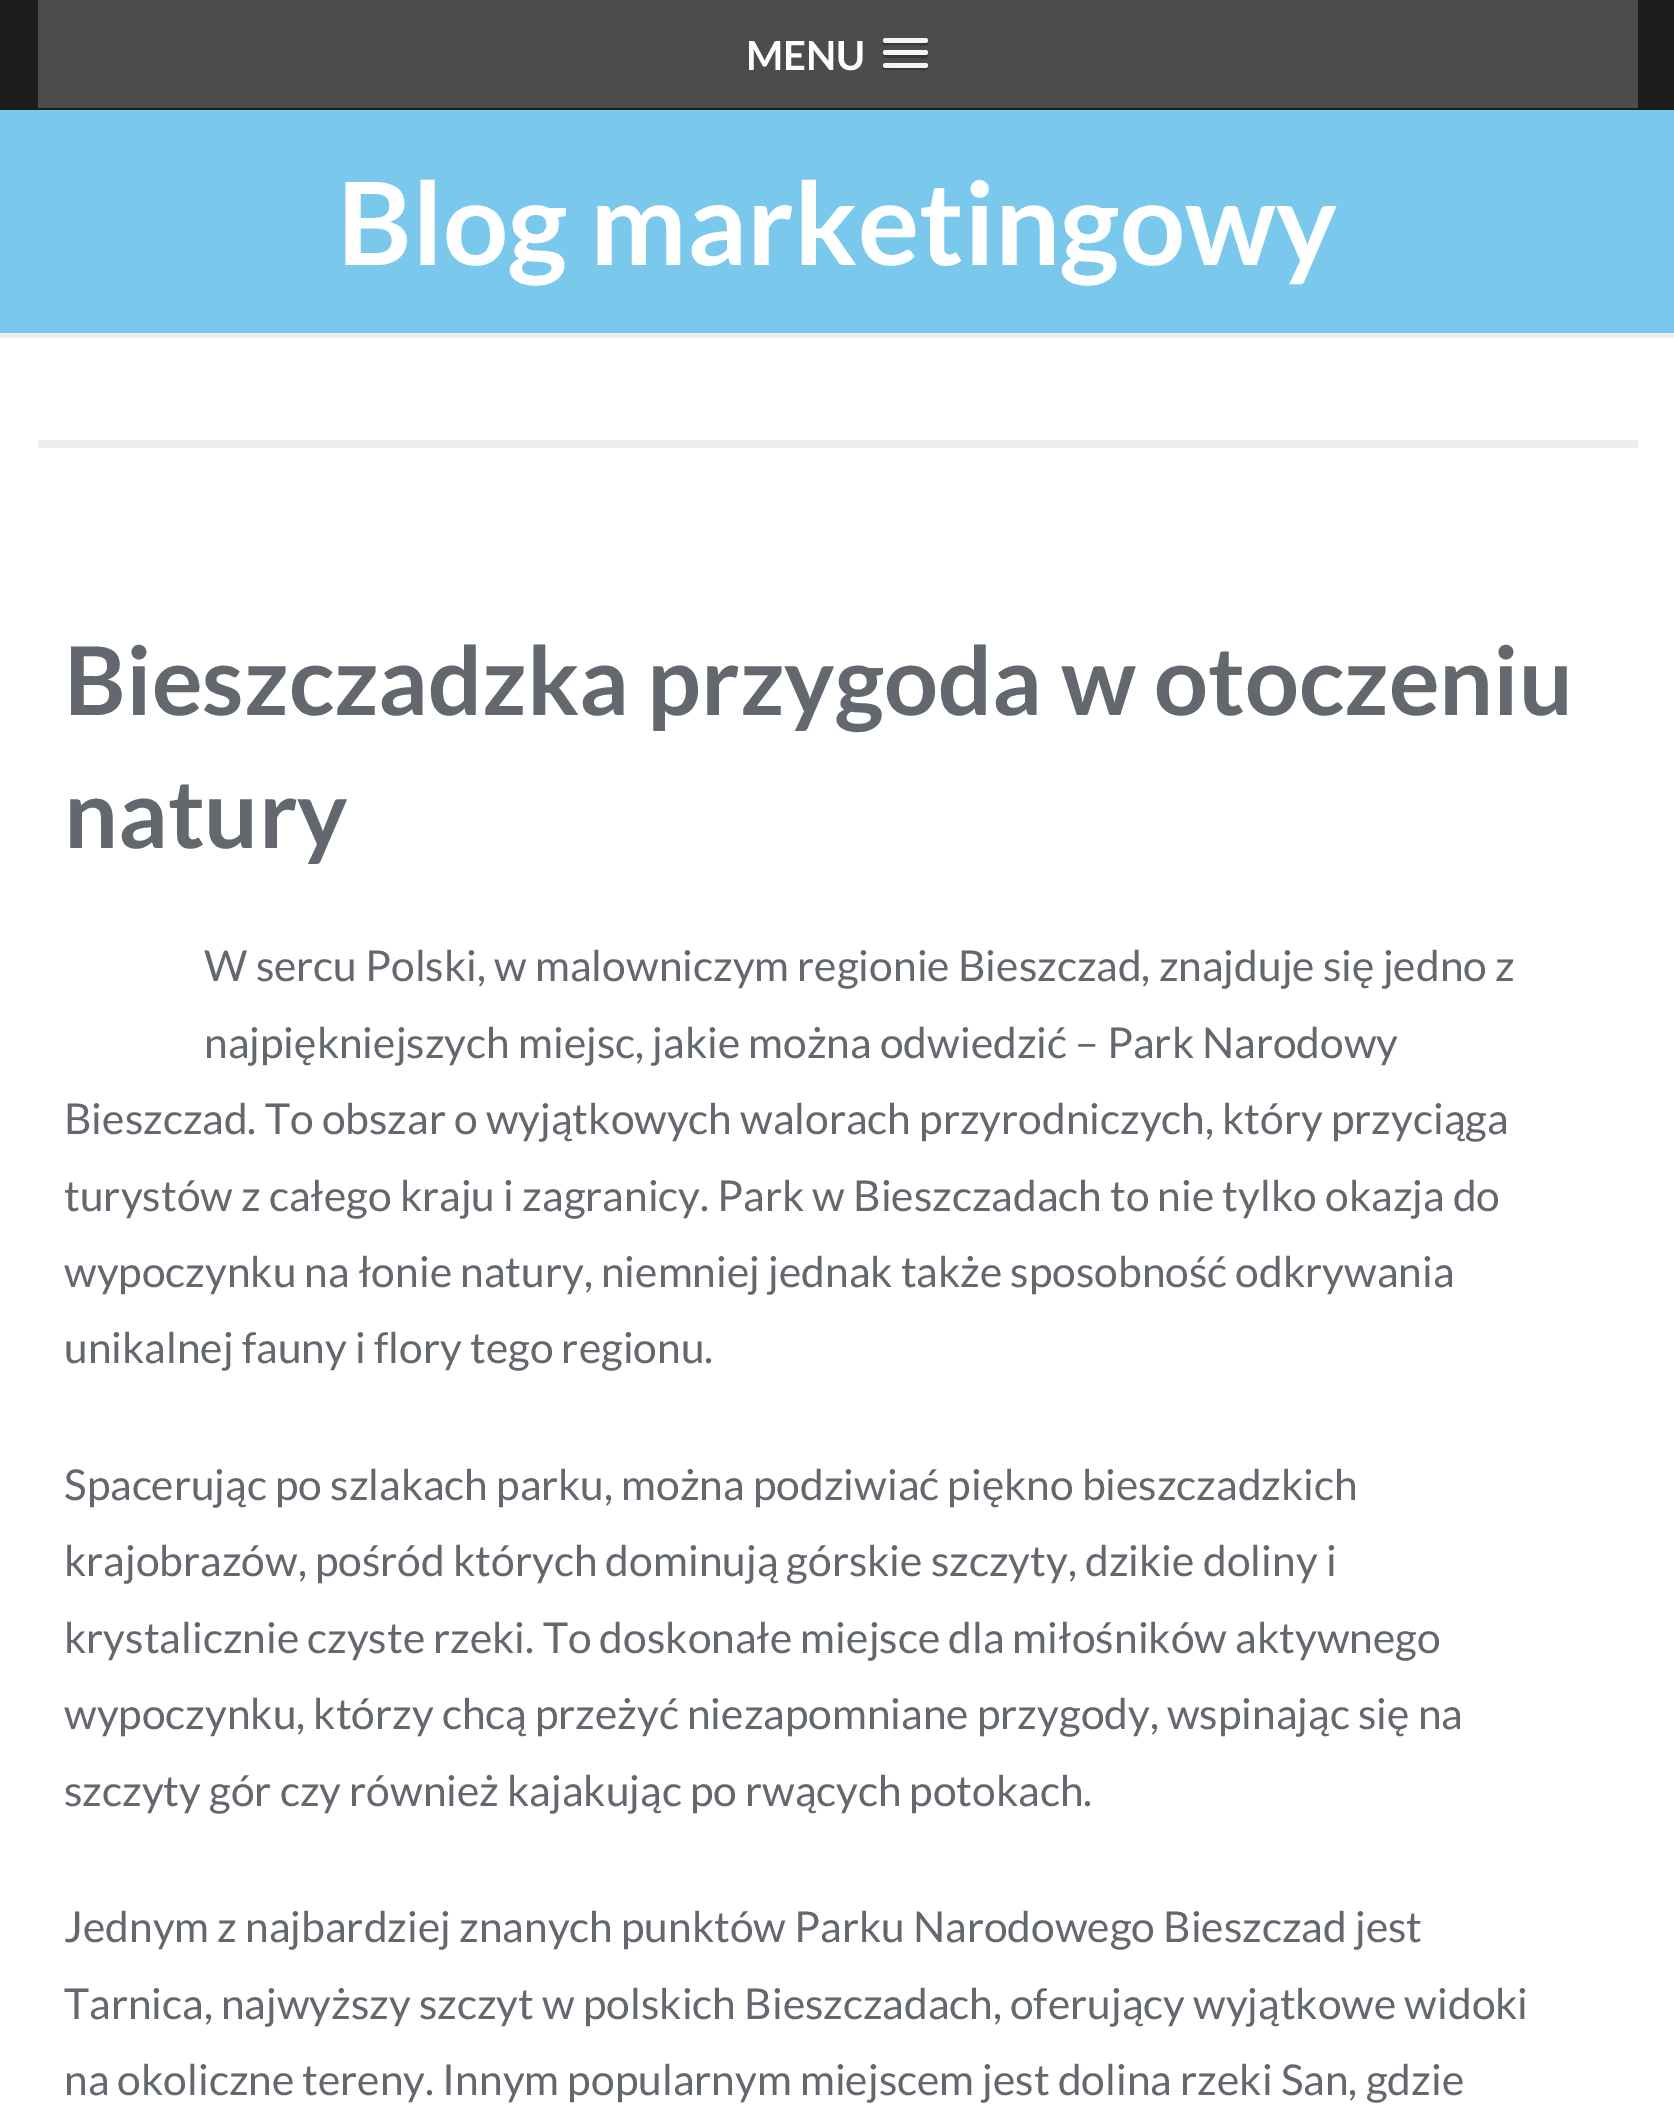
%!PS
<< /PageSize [1674 2104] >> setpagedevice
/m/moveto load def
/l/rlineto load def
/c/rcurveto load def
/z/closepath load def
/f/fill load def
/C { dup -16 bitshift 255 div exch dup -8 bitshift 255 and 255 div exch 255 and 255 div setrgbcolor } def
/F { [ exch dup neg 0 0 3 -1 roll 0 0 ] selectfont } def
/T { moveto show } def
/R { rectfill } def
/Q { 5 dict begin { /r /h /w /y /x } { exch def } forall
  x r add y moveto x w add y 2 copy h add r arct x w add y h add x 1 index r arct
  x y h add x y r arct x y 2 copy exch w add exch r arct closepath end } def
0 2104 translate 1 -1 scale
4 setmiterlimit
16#FFFFFF C
0 0 1674 2104 R
16#1D1D1D C
0 0 1674 110 R
16#EEEEEE C
0 333 1674 5 R
16#4C4C4C C
38 0 1600 108 R
/Lato-Bold 40 F
16#FFFFFF C
(MENU) 746 70 T
16#393939 C
883 42 m -2 5 8 3 9 3 c 27 0 l 1 0 8 2 9 -2 c -1 -2 l -2 1 l -40 0 l z f
16#F5F5F5 C
883 38 45 5 2.5 Q f
16#393939 C
883 54 m -2 5 9 4 9 4 c 27 0 l 1 0 8 2 9 -2 c -1 -2 l -2 1 l -3 0 -40 1 -42 -1 c z f
16#F5F5F5 C
883 50 45 5 2.5 Q f
16#393939 C
883 67 m -2 5 8 3 9 3 c 27 0 l 1 0 8 2 9 -2 c -1 -2 l -2 1 l -40 0 l z f
16#F5F5F5 C
883 63 45 5 2.5 Q f
16#7AC9ED C
0 110 1674 223 R
/Lato-Bold 115 F
16#FFFFFF C
(Blog marketingowy) 337 265 T
16#EEEEEE C
38 440 1600 8 R
/Lato-Bold 95 F
16#63676E C
(Bieszczadzka przygoda w otoczeniu) 64 715 T
(natury) 64 848 T
/Lato-Regular 42.5 F
(W sercu Polski, w malowniczym regionie Bieszczad, znajduje się jedno z) 204 981 T
(najpiękniejszych miejsc, jakie można odwiedzić – Park Narodowy) 204 1058 T
(Bieszczad. To obszar o wyjątkowych walorach przyrodniczych, który przyciąga) 64 1134 T
(turystów z całego kraju i zagranicy. Park w Bieszczadach to nie tylko okazja do) 64 1211 T
(wypoczynku na łonie natury, niemniej jednak także sposobność odkrywania) 64 1287 T
(unikalnej fauny i flory tego regionu.) 64 1363 T
(Spacerując po szlakach parku, można podziwiać piękno bieszczadzkich) 64 1500 T
(krajobrazów, pośród których dominują górskie szczyty, dzikie doliny i) 64 1576 T
(krystalicznie czyste rzeki. To doskonałe miejsce dla miłośników aktywnego) 64 1653 T
(wypoczynku, którzy chcą przeżyć niezapomniane przygody, wspinając się na) 64 1729 T
(szczyty gór czy również kajakując po rwących potokach.) 64 1806 T
(Jednym z najbardziej znanych punktów Parku Narodowego Bieszczad jest) 64 1942 T
(Tarnica, najwyższy szczyt w polskich Bieszczadach, oferujący wyjątkowe widoki) 64 2019 T
(na okoliczne tereny. Innym popularnym miejscem jest dolina rzeki San, gdzie) 64 2095 T
showpage
